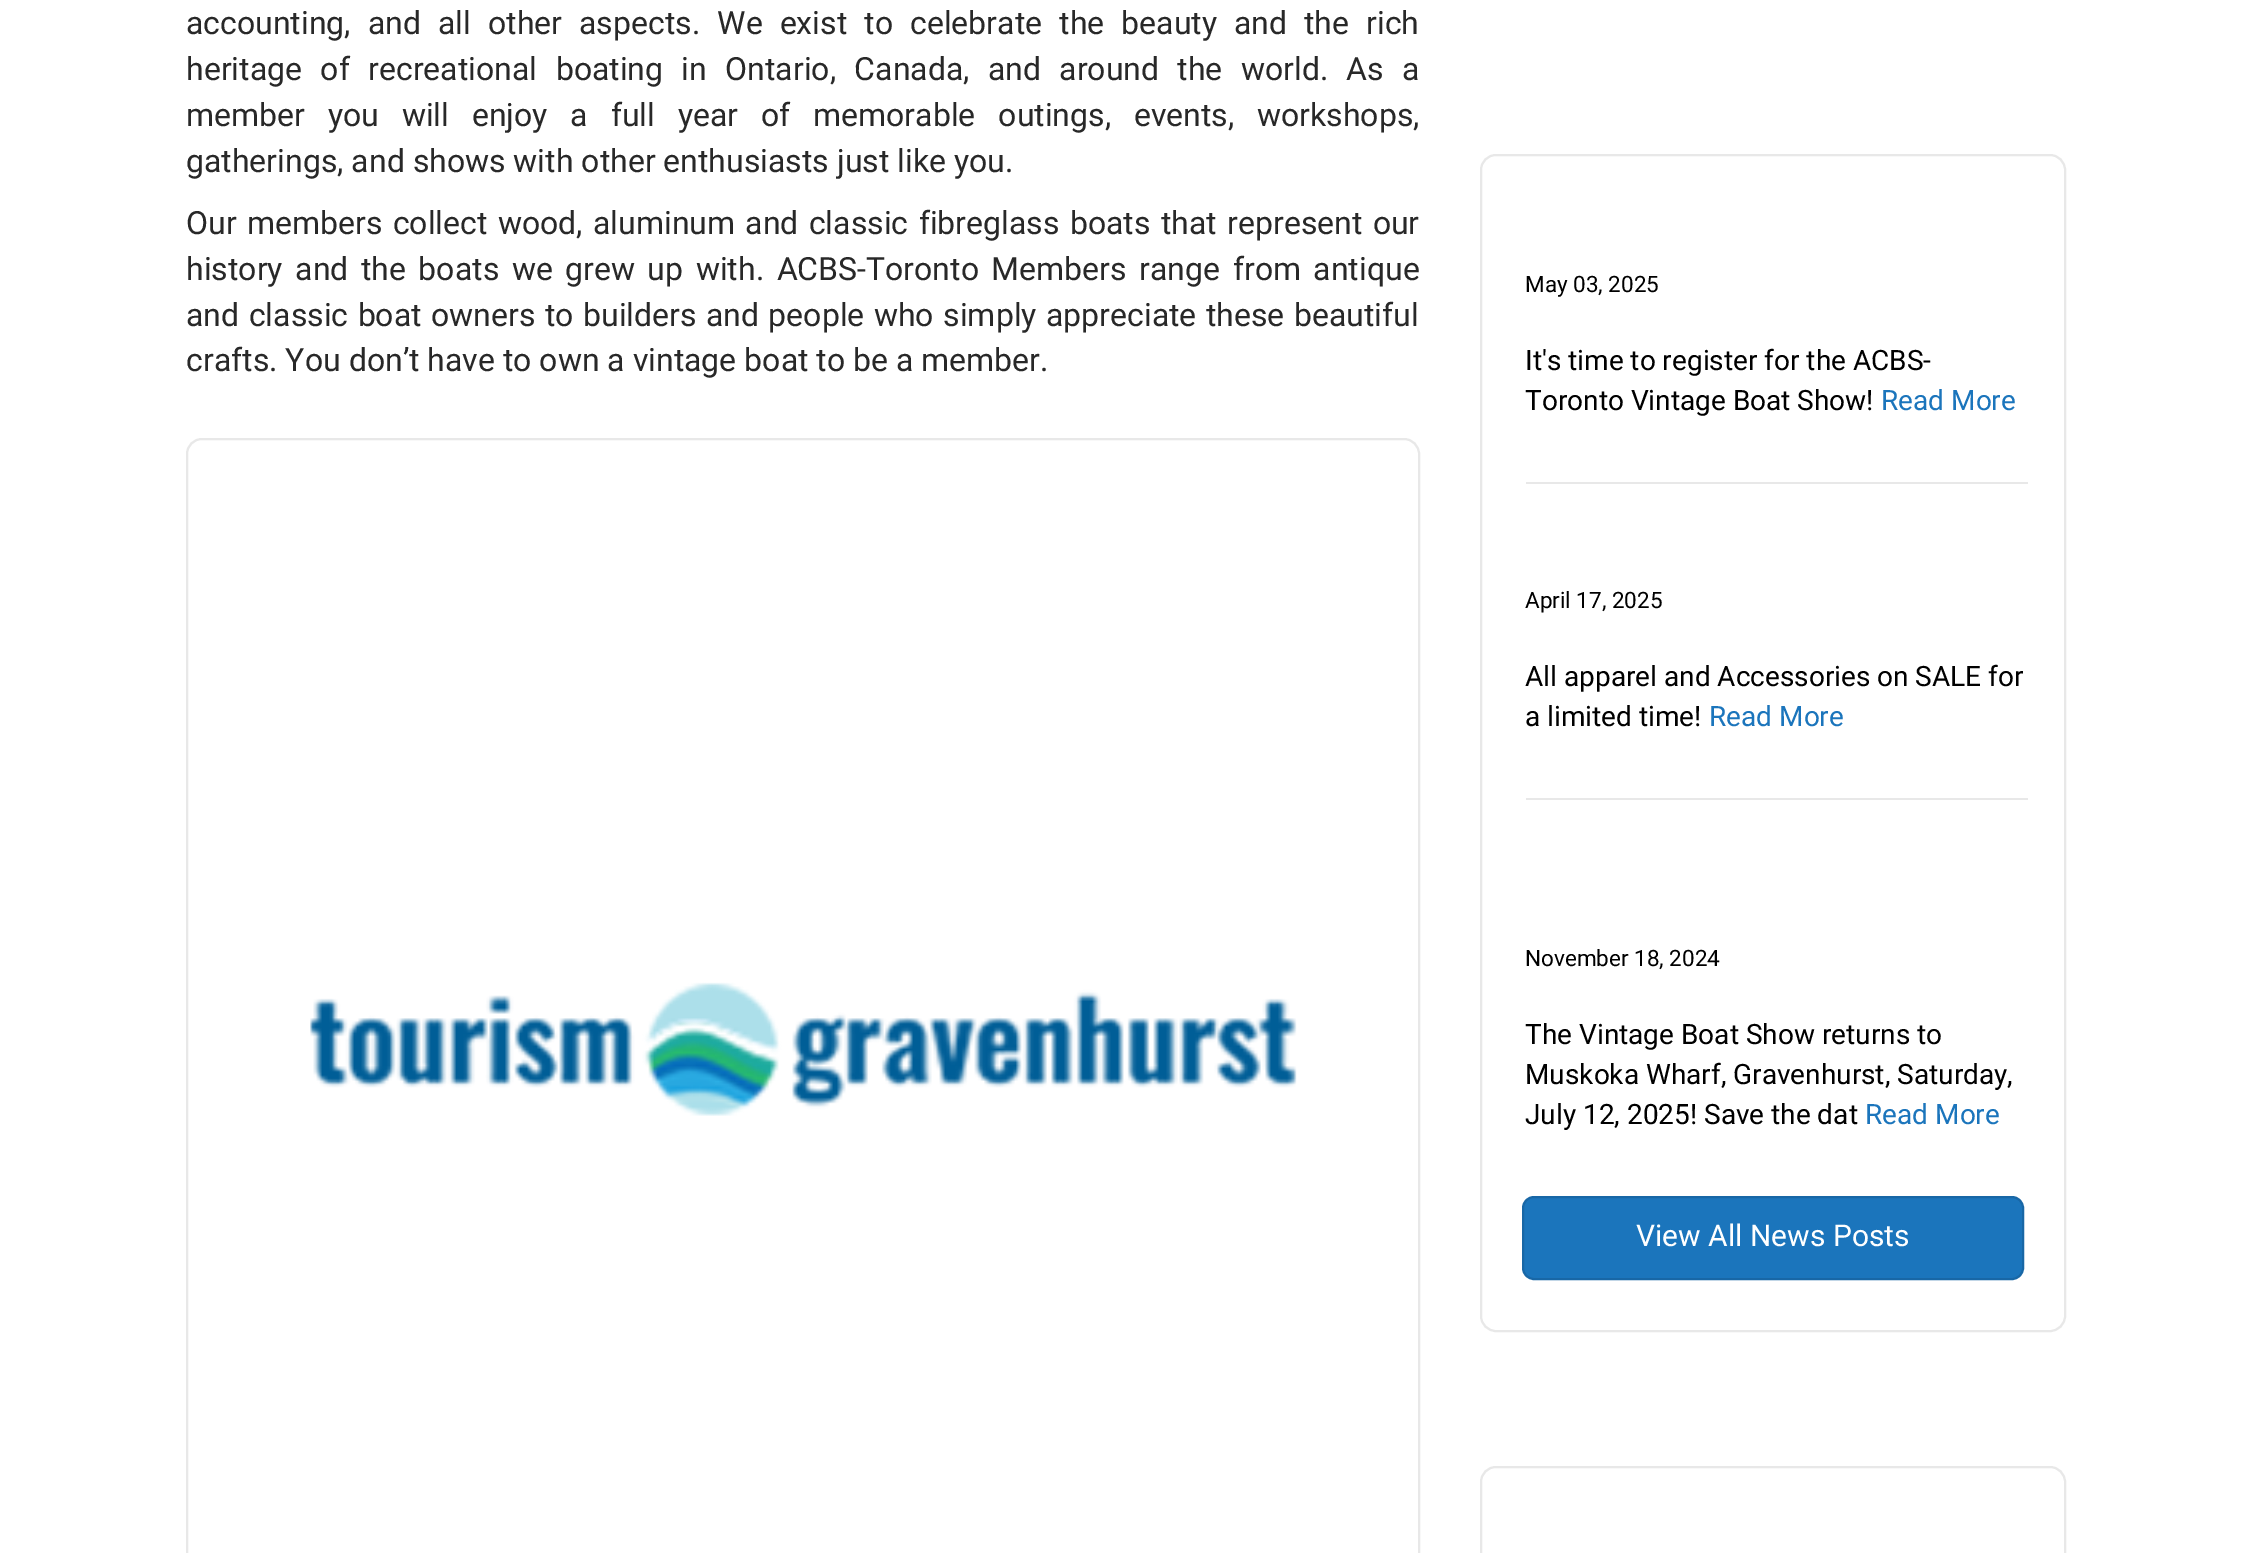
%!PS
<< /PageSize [2252 1553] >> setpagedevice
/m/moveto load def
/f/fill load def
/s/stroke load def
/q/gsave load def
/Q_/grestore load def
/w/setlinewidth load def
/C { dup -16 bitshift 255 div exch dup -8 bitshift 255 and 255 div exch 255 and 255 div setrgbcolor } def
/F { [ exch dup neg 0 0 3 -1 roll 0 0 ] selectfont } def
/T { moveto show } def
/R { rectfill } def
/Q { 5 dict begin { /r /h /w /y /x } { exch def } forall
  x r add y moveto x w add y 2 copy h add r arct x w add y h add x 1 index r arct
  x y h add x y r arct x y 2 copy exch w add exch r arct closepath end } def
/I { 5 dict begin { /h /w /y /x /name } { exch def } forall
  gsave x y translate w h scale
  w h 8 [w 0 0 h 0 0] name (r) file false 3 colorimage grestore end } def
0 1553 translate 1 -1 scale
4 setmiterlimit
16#FFFFFF C
0 0 2252 1553 R
/Roboto-Regular 32 F
16#282828 C
186 34 m 9.1 0 32 (accounting, and all other aspects. We exist to celebrate the beauty and the rich) widthshow
186 80 m 10.4 0 32 (heritage of recreational boating in Ontario, Canada, and around the world. As a) widthshow
186 126 m 14.9 0 32 (member you will enjoy a full year of memorable outings, events, workshops,) widthshow
(gatherings, and shows with other enthusiasts just like you.) 186 172 T
186 234 m 2.4 0 32 (Our members collect wood, aluminum and classic fibreglass boats that represent our) widthshow
186 280 m 4.6 0 32 (history and the boats we grew up with. ACBS-Toronto Members range from antique) widthshow
186 326 m 1.5 0 32 (and classic boat owners to builders and people who simply appreciate these beautiful) widthshow
(crafts. You don’t have to own a vintage boat to be a member.) 186 371 T
16#E8E8E8 C
2 w
187 439 1232 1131 15 Q s
(1.rgb) 310 982 987 134 I
1481 155 584 1176 15 Q s
1526 482 502 2 R
/Roboto-Regular 22.5 F
16#000000 C
(May 03, 2025) 1525 292 T
/Roboto-Regular 28 F
(It's time to register for the ACBS-) 1525 370 T
(Toronto Vintage Boat Show!) 1525 410 T
16#1B75BC C
(Read More) 1881 410 T
16#E8E8E8 C
1526 798 502 2 R
/Roboto-Regular 22.5 F
16#000000 C
(April 17, 2025) 1525 608 T
/Roboto-Regular 28 F
(All apparel and Accessories on SALE for) 1525 686 T
(a limited time!) 1525 726 T
16#1B75BC C
(Read More) 1709 726 T
/Roboto-Regular 22.5 F
16#000000 C
(November 18, 2024) 1525 966 T
/Roboto-Regular 28 F
(The Vintage Boat Show returns to) 1525 1044 T
(Muskoka Wharf, Gravenhurst, Saturday,) 1525 1084 T
(July 12, 2025! Save the dat) 1525 1124 T
16#1B75BC C
(Read More) 1865 1124 T
1523 1197 500 82 11 Q q f Q_
16#1867A6 C
s
/Roboto-Regular 30 F
16#FFFFFF C
(View All News Posts) 1636 1246 T
16#E8E8E8 C
1481 1467 584 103 15 Q s
showpage
